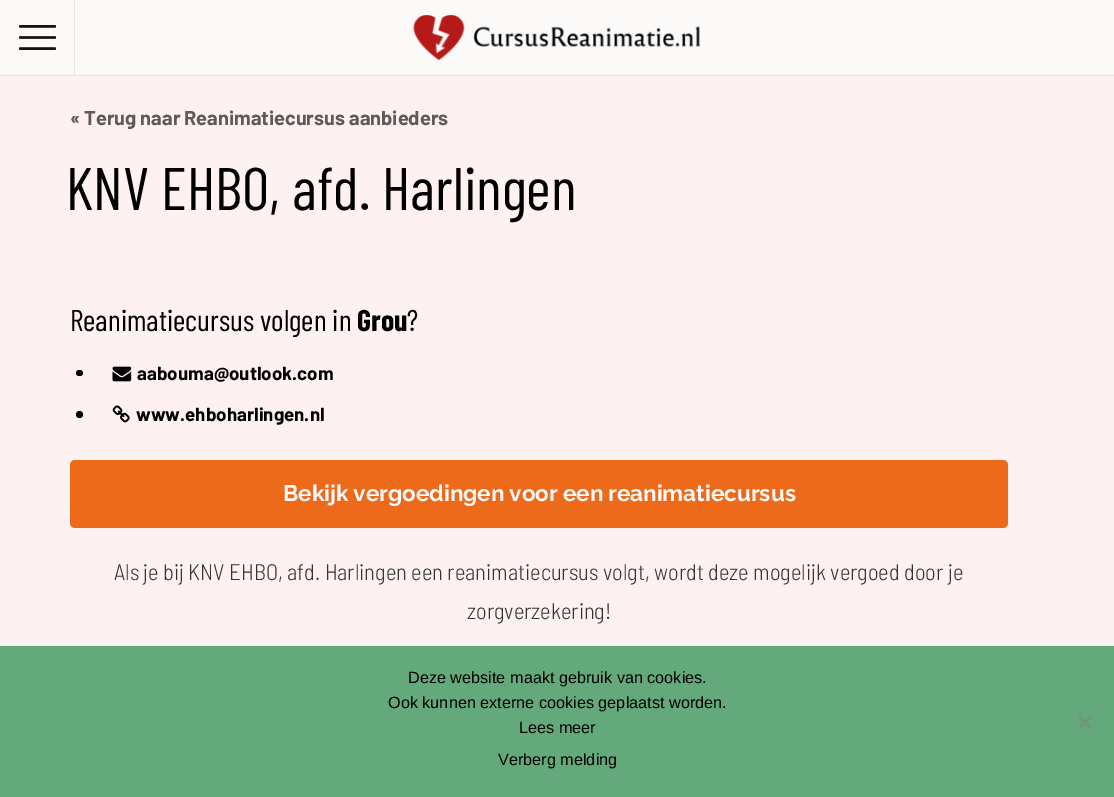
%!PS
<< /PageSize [1114 797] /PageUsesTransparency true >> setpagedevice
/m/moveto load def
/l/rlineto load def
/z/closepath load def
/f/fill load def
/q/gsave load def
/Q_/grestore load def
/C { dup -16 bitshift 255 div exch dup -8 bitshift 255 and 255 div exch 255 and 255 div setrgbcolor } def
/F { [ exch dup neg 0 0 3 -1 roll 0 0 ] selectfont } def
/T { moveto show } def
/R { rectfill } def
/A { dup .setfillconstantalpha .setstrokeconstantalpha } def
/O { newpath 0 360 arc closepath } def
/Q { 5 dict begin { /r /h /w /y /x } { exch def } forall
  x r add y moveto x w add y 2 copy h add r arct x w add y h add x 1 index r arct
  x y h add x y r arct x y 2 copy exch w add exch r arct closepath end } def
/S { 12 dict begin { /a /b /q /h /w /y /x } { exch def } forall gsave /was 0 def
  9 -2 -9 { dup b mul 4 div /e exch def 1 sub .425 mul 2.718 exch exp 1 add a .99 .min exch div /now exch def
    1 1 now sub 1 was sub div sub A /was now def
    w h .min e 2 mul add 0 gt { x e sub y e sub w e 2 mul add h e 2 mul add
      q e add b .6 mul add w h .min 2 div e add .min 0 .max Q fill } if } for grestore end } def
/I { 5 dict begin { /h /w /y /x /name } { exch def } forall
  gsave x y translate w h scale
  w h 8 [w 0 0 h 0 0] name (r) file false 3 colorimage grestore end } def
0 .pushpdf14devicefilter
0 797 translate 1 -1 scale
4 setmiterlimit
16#FCF9F9 C
0 0 1114 797 R
16#FDF2F1 C
0 75 1114 571 R
q
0 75 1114 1 rectclip
16#000000 C
0 0 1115 75 0 1 .25 S
Q_
16#E9E6E6 C
74 0 1 75 R
(1.rgb) 19 25 37 25 I
(2.rgb) 413 15 288 45 I
/Barlow-Bold 20 F
16#605959 C
(« Terug naar Reanimatiecursus aanbieders) 70 125 T
/BarlowCondensed-Regular 60 F
16#000000 C
(KNV EHBO, afd. Harlingen) 66 210 T
/BarlowCondensed-Regular 30 F
(Reanimatiecursus volgen in) 70 331 T
/BarlowCondensed-Bold 30 F
(Grou) 357 331 T
/BarlowCondensed-Regular 30 F
(?) 407 331 T
76 370 7 6 3 Q f
(3.rgb) 112 366 20 16 I
/Barlow-Bold 18.75 F
(aabouma@outlook.com) 137 380 T
79.5 414.5 3.5 O f
(4.rgb) 112 405 18 18 I
(www.ehboharlingen.nl) 136 421 T
16#EC6A1A C
70 460 938 68 5 Q f
/Raleway-Bold 22.5 F
16#FCF9F9 C
283 501 m -.5 0 32 (Bekijk vergoedingen voor een reanimatiecursus) widthshow
/BarlowSemiCondensed-Light 22.5 F
16#333333 C
114 580 m -.1 0 32 (Als je bij KNV EHBO, afd. Harlingen een reanimatiecursus volgt, wordt deze mogelijk vergoed door je) widthshow
(zorgverzekering!) 467 619 T
16#64A97B C
0 646 1114 151 R
/LiberationSans-Regular 16.25 F
16#000000 C
(Deze website maakt gebruik van cookies.) 408 683 T
(Ook kunnen externe cookies geplaatst worden.) 388 708 T
(Lees meer) 519 733 T
16#72957E C
1090.5 715 m 2 2 l -13 13 l -2 -2 l z f
1077.5 717 m 2 -2 l 13 13 l -2 2 l z f
16#000000 C
(Verberg melding) 498 765 T
.poppdf14devicefilter showpage
